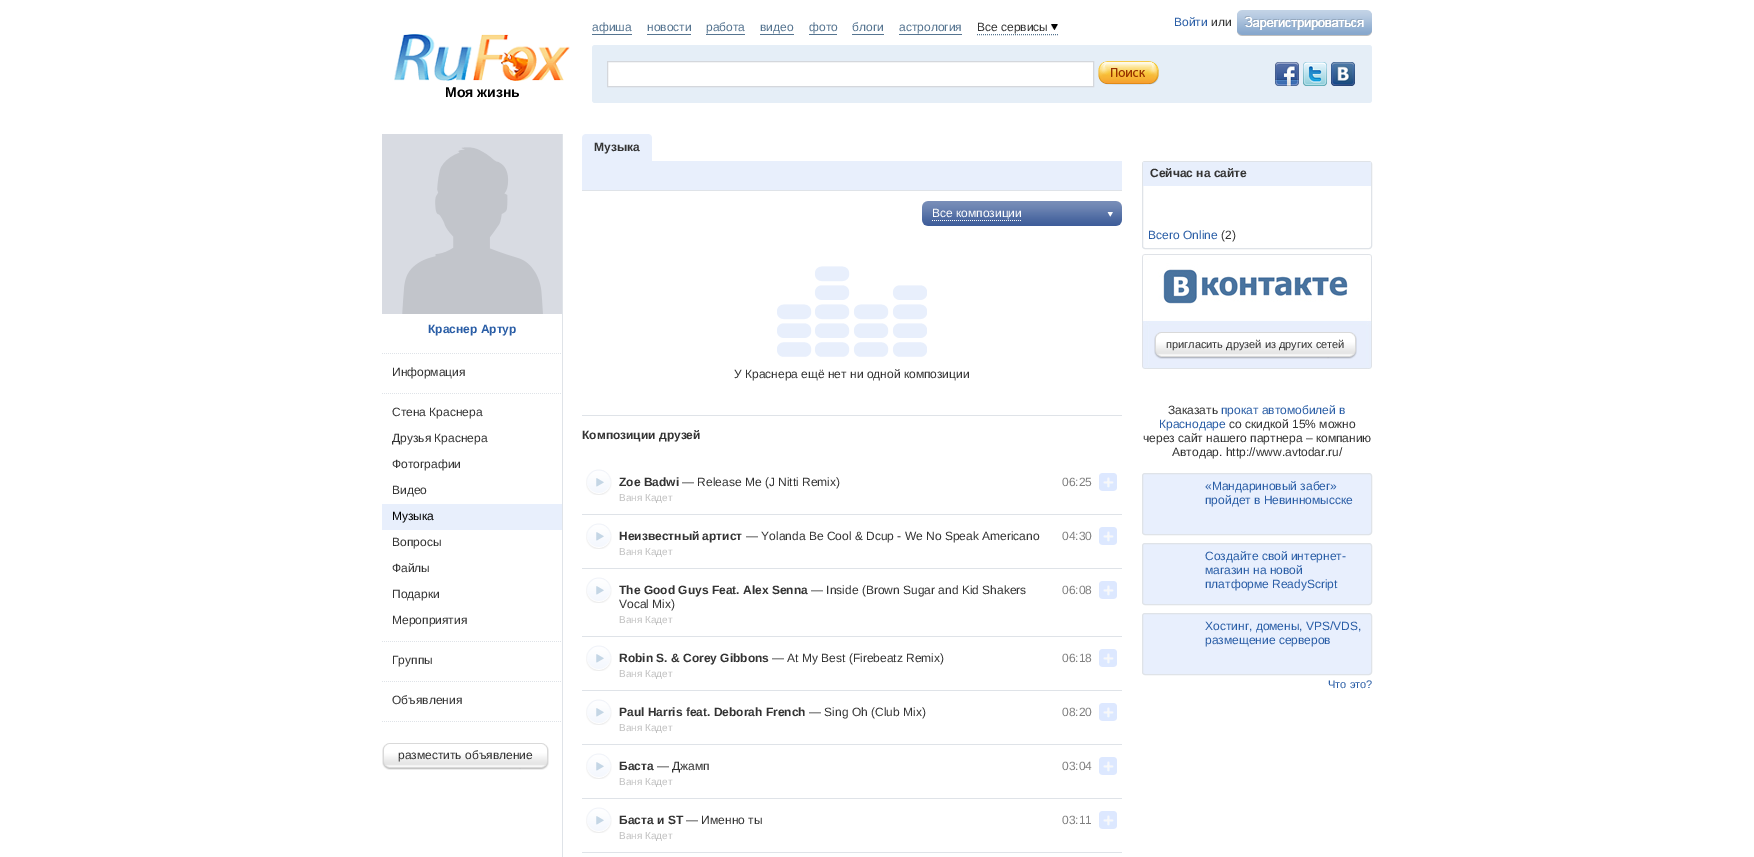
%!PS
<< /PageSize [1754 857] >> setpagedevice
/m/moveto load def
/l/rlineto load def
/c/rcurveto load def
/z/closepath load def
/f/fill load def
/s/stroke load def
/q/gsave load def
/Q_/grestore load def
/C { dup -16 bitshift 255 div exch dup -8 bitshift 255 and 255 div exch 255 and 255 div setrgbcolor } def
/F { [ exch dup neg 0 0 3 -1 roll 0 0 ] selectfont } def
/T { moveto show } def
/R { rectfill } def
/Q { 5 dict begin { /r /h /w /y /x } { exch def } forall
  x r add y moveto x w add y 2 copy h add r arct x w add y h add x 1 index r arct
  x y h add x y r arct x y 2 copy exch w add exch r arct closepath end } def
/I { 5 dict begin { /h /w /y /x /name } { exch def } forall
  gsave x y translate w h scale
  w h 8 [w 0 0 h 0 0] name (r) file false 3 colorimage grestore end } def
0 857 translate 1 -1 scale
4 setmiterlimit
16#FFFFFF C
0 0 1754 857 R
16#557490 C
592 34 40 1 R
/LiberationSans-Regular 12 F
(афиша) 592 31 T
647 34 44 1 R
(новости) 647 31 T
706 34 39 1 R
(работа) 706 31 T
760 34 34 1 R
(видео) 760 31 T
809 34 28 1 R
(фото) 809 31 T
852 34 32 1 R
(блоги) 852 31 T
899 34 63 1 R
(астрология) 899 31 T
(1.rgb) 1051 24 7 6 I
[1 1] 0 setdash
977 34.5 m 81 0 l s
16#333333 C
(Все сервисы) 977 31 T
16#295DA6 C
(Войти) 1174 26 T
16#333333 C
(или) 1211 26 T
(2.rgb) 1237 10 135 26 I
(3.rgb) 394 34 176 47 I
/LiberationSans-Bold 14 F
16#000000 C
(Моя жизнь) 445 97 T
16#E5EEF7 C
592 45 780 58 3 Q f
16#FFFFFF C
607.5 61.5 m 486 0 l 0 25 l -486 0 l z q f Q_
16#D4D7DC C
[] 0 setdash
s
(4.rgb) 1098 61 61 24 I
(5.rgb) 1275 62 24 24 I
(6.rgb) 1303 62 24 24 I
(7.rgb) 1331 62 24 24 I
16#DFE3E8 C
562 134 1 723 R
(8.rgb) 382 134 180 180 I
/LiberationSans-Bold 12 F
16#295DA6 C
(Краснер Артур) 428 333 T
(9.rgb) 382 353 179 1 I
/LiberationSans-Regular 12 F
16#333333 C
(Информация) 392 376 T
(9.rgb) 382 393 179 1 I
(Стена Краснера) 392 416 T
(Друзья Краснера) 392 442 T
(Фотографии) 392 468 T
(Видео) 392 494 T
16#E8EFFC C
382 504 180 26 R
16#000000 C
(Музыка) 392 520 T
16#333333 C
(Вопросы) 392 546 T
(Файлы) 392 572 T
(Подарки) 392 598 T
(Мероприятия) 392 624 T
(9.rgb) 382 641 179 1 I
(Группы) 392 664 T
(9.rgb) 382 681 179 1 I
(Объявления) 392 704 T
(9.rgb) 382 721 179 1 I
(10.rgb) 382 743 12 27 I
(11.rgb) 394 743 155 27 I
(разместить объявление) 398 759 T
16#E8EFFC C
586 134 m 62 0 l 2 0 4 2 4 4 c 0 23 l -70 0 l 0 -23 l 0 -2 2 -4 4 -4 c z f
/LiberationSans-Bold 12 F
16#333333 C
(Музыка) 594 151 T
16#E8EFFC C
582 161 540 29 R
16#DFE3E8 C
582 190 540 1 R
(12.rgb) 922 201 200 25 I
(13.rgb) 1107 212 6 5 I
/LiberationSans-Regular 12 F
16#FFFFFF C
(Все композиции) 932 217 T
(14.rgb) 932 220 89 1 I
16#DFE3E8 C
582 415 540 1 R
(15.rgb) 777 266 150 91 I
16#333333 C
(У Краснера ещё нет ни одной композиции) 734 378 T
/LiberationSans-Bold 12 F
(Композиции друзей) 582 439 T
16#DFE3E8 C
582 514 540 1 R
(16.rgb) 586 469 26 26 I
16#333333 C
(Zoe Badwi) 619 486 T
/LiberationSans-Regular 12 F
(— Release Me \(J Nitti Remix\)) 682 486 T
16#808080 C
(06:25) 1062 486 T
/LiberationSans-Regular 10 F
16#C0C0C0 C
(Ваня Кадет) 619 501 T
(17.rgb) 1099 473 18 18 I
16#DFE3E8 C
582 568 540 1 R
(16.rgb) 586 523 26 26 I
/LiberationSans-Bold 12 F
16#333333 C
(Неизвестный артист) 619 540 T
/LiberationSans-Regular 12 F
(— Yolanda Be Cool & Dcup - We No Speak Americano) 746 540 T
16#808080 C
(04:30) 1062 540 T
/LiberationSans-Regular 10 F
16#C0C0C0 C
(Ваня Кадет) 619 555 T
(17.rgb) 1099 527 18 18 I
16#DFE3E8 C
582 636 540 1 R
(16.rgb) 586 577 26 26 I
/LiberationSans-Bold 12 F
16#333333 C
(The Good Guys Feat. Alex Senna) 619 594 T
/LiberationSans-Regular 12 F
(— Inside \(Brown Sugar and Kid Shakers) 811 594 T
16#808080 C
(06:08) 1062 594 T
16#333333 C
(Vocal Mix\)) 619 608 T
/LiberationSans-Regular 10 F
16#C0C0C0 C
(Ваня Кадет) 619 623 T
(17.rgb) 1099 581 18 18 I
16#DFE3E8 C
582 690 540 1 R
(16.rgb) 586 645 26 26 I
/LiberationSans-Bold 12 F
16#333333 C
(Robin S. & Corey Gibbons) 619 662 T
/LiberationSans-Regular 12 F
(— At My Best \(Firebeatz Remix\)) 772 662 T
16#808080 C
(06:18) 1062 662 T
/LiberationSans-Regular 10 F
16#C0C0C0 C
(Ваня Кадет) 619 677 T
(17.rgb) 1099 649 18 18 I
16#DFE3E8 C
582 744 540 1 R
(16.rgb) 586 699 26 26 I
/LiberationSans-Bold 12 F
16#333333 C
(Paul Harris feat. Deborah French) 619 716 T
/LiberationSans-Regular 12 F
(— Sing Oh \(Club Mix\)) 809 716 T
16#808080 C
(08:20) 1062 716 T
/LiberationSans-Regular 10 F
16#C0C0C0 C
(Ваня Кадет) 619 731 T
(17.rgb) 1099 703 18 18 I
16#DFE3E8 C
582 798 540 1 R
(16.rgb) 586 753 26 26 I
/LiberationSans-Bold 12 F
16#333333 C
(Баста) 619 770 T
/LiberationSans-Regular 12 F
(— Джамп) 657 770 T
16#808080 C
(03:04) 1062 770 T
/LiberationSans-Regular 10 F
16#C0C0C0 C
(Ваня Кадет) 619 785 T
(17.rgb) 1099 757 18 18 I
16#DFE3E8 C
582 852 540 1 R
(16.rgb) 586 807 26 26 I
/LiberationSans-Bold 12 F
16#333333 C
(Баста и ST) 619 824 T
/LiberationSans-Regular 12 F
(— Именно ты) 686 824 T
16#808080 C
(03:11) 1062 824 T
/LiberationSans-Regular 10 F
16#C0C0C0 C
(Ваня Кадет) 619 839 T
(17.rgb) 1099 811 18 18 I
16#DFE3E8 C
1142.5 161.5 229 87 2.5 Q s
16#E8EFFC C
1143 162 228 24 R
/LiberationSans-Bold 12 F
16#333333 C
(Сейчас на сайте) 1150 177 T
/LiberationSans-Regular 12 F
16#295DA6 C
(Всего Online) 1148 239 T
16#333333 C
(\(2\)) 1221 239 T
(18.rgb) 1142 254 230 115 I
(19.rgb) 1154 332 12 27 I
(20.rgb) 1166 332 191 27 I
/LiberationSans-Regular 11 F
(пригласить друзей из других сетей) 1166 348 T
/LiberationSans-Regular 12 F
(Заказать) 1168 414 T
16#295DA6 C
(прокат автомобилей в) 1221 414 T
(Краснодаре) 1159 428 T
16#333333 C
(со скидкой 15% можно) 1229 428 T
(через сайт нашего партнера – компанию) 1143 442 T
(Автодар. http://www.avtodar.ru/) 1172 456 T
16#E8EFFD C
1142.5 473.5 229 61 2.5 Q q f Q_
16#DFE3E8 C
s
16#295DA6 C
(«Мандариновый забег») 1205 490 T
(пройдет в Невинномысске) 1205 504 T
16#E8EFFD C
1142.5 543.5 229 61 2.5 Q q f Q_
16#DFE3E8 C
s
16#295DA6 C
(Создайте свой интернет-) 1205 560 T
(магазин на новой) 1205 574 T
(платформе ReadyScript) 1205 588 T
16#E8EFFD C
1142.5 613.5 229 61 2.5 Q q f Q_
16#DFE3E8 C
s
16#295DA6 C
(Хостинг, домены, VPS/VDS,) 1205 630 T
(размещение серверов) 1205 644 T
/LiberationSans-Regular 11 F
(Что это?) 1328 688 T
showpage
